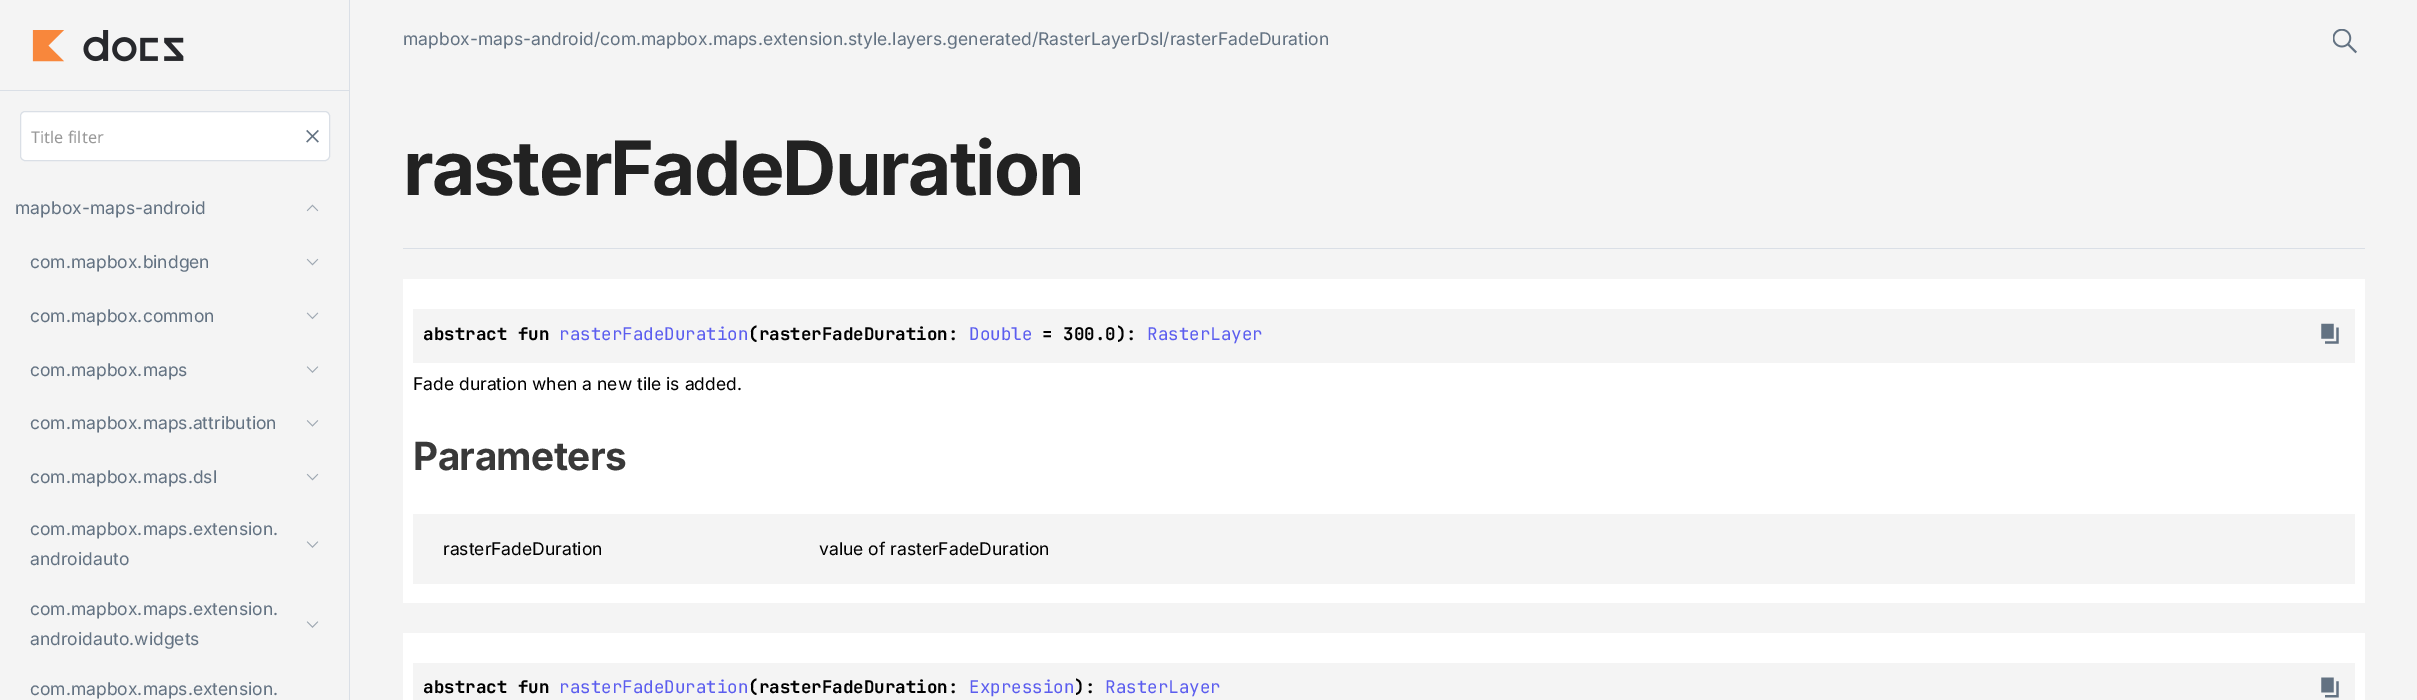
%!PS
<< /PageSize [2417 700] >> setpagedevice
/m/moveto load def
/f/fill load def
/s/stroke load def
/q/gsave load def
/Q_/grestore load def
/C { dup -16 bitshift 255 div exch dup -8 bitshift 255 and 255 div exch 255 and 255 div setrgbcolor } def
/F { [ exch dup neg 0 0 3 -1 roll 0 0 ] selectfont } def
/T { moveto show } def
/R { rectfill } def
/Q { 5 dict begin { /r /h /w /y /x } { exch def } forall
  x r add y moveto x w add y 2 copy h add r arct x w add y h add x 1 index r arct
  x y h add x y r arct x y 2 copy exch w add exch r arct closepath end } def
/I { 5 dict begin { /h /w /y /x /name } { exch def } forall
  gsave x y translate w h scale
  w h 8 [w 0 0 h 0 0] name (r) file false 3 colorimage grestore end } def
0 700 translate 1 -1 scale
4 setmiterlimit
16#F4F4F4 C
0 0 2417 700 R
16#DADFE6 C
349 0 1 700 R
(1.rgb) 32 30 152 32 I
0 90 349 1 R
16#FFFFFF C
20.5 111.5 309 49 4.5 Q q f Q_
16#DADFE6 C
s
/NotoSans-Regular 16.25 F
16#999999 C
(Title filter) 31 143 T
(2.rgb) 306 129 13 14 I
/Inter-Regular 17.5 F
16#637282 C
(mapbox-maps-android) 15 214 T
(3.rgb) 306 204 13 8 I
(com.mapbox.bindgen) 30 268 T
(4.rgb) 306 258 13 8 I
(com.mapbox.common) 30 322 T
(5.rgb) 306 312 13 8 I
(com.mapbox.maps) 30 376 T
(6.rgb) 306 366 13 7 I
(com.mapbox.maps.attribution) 30 429 T
(7.rgb) 306 420 13 7 I
(com.mapbox.maps.dsl) 30 483 T
(4.rgb) 306 473 13 8 I
(com.mapbox.maps.extension.) 30 535 T
(androidauto) 30 565 T
(6.rgb) 306 541 13 7 I
(com.mapbox.maps.extension.) 30 615 T
(androidauto.widgets) 30 645 T
(6.rgb) 306 621 13 7 I
(com.mapbox.maps.extension.) 30 695 T
(mapbox-maps-android/com.mapbox.maps.extension.style.layers.generated/RasterLayerDsl/rasterFadeDuration) 403 45 T
(8.rgb) 2333 29 24 25 I
16#DADFE6 C
403 248 1962 1 R
/Inter-Bold 75 F
16#222222 C
403 195 m -1.9 0 (rasterFadeDuration) ashow
16#FFFFFF C
403 279 1962 324 R
16#F4F4F4 C
413 309 1942 54 R
/JetBrainsMono-Bold 17.5 F
16#000000 C
(abstract fun) 423 340 T
/JetBrainsMono-Regular 17.5 F
16#5B5DEF C
(rasterFadeDuration) 559 340 T
/JetBrainsMono-Bold 17.5 F
16#000000 C
(\(rasterFadeDuration:) 748 340 T
/JetBrainsMono-Regular 17.5 F
16#5B5DEF C
(Double) 969 340 T
/JetBrainsMono-Bold 17.5 F
16#000000 C
(= 300.0\):) 1042 340 T
/JetBrainsMono-Regular 17.5 F
16#5B5DEF C
(RasterLayer) 1147 340 T
(9.rgb) 2321 323 18 21 I
/Inter-Regular 17.5 F
16#000000 C
(Fade duration when a new tile is added.) 413 390 T
/Inter-Bold 38.75 F
16#393939 C
413 470 m -.6 0 (Parameters) ashow
16#F4F4F4 C
413 514 1942 70 R
/Inter-Regular 17.5 F
16#000000 C
(rasterFadeDuration) 443 555 T
(value of rasterFadeDuration) 819 555 T
16#FFFFFF C
403 633 1962 67 R
16#F4F4F4 C
413 663 1942 37 R
/JetBrainsMono-Bold 17.5 F
16#000000 C
(abstract fun) 423 693 T
/JetBrainsMono-Regular 17.5 F
16#5B5DEF C
(rasterFadeDuration) 559 693 T
/JetBrainsMono-Bold 17.5 F
16#000000 C
(\(rasterFadeDuration:) 748 693 T
/JetBrainsMono-Regular 17.5 F
16#5B5DEF C
(Expression) 969 693 T
/JetBrainsMono-Bold 17.5 F
16#000000 C
(\):) 1074 693 T
/JetBrainsMono-Regular 17.5 F
16#5B5DEF C
(RasterLayer) 1105 693 T
(10.rgb) 2321 677 18 21 I
showpage
